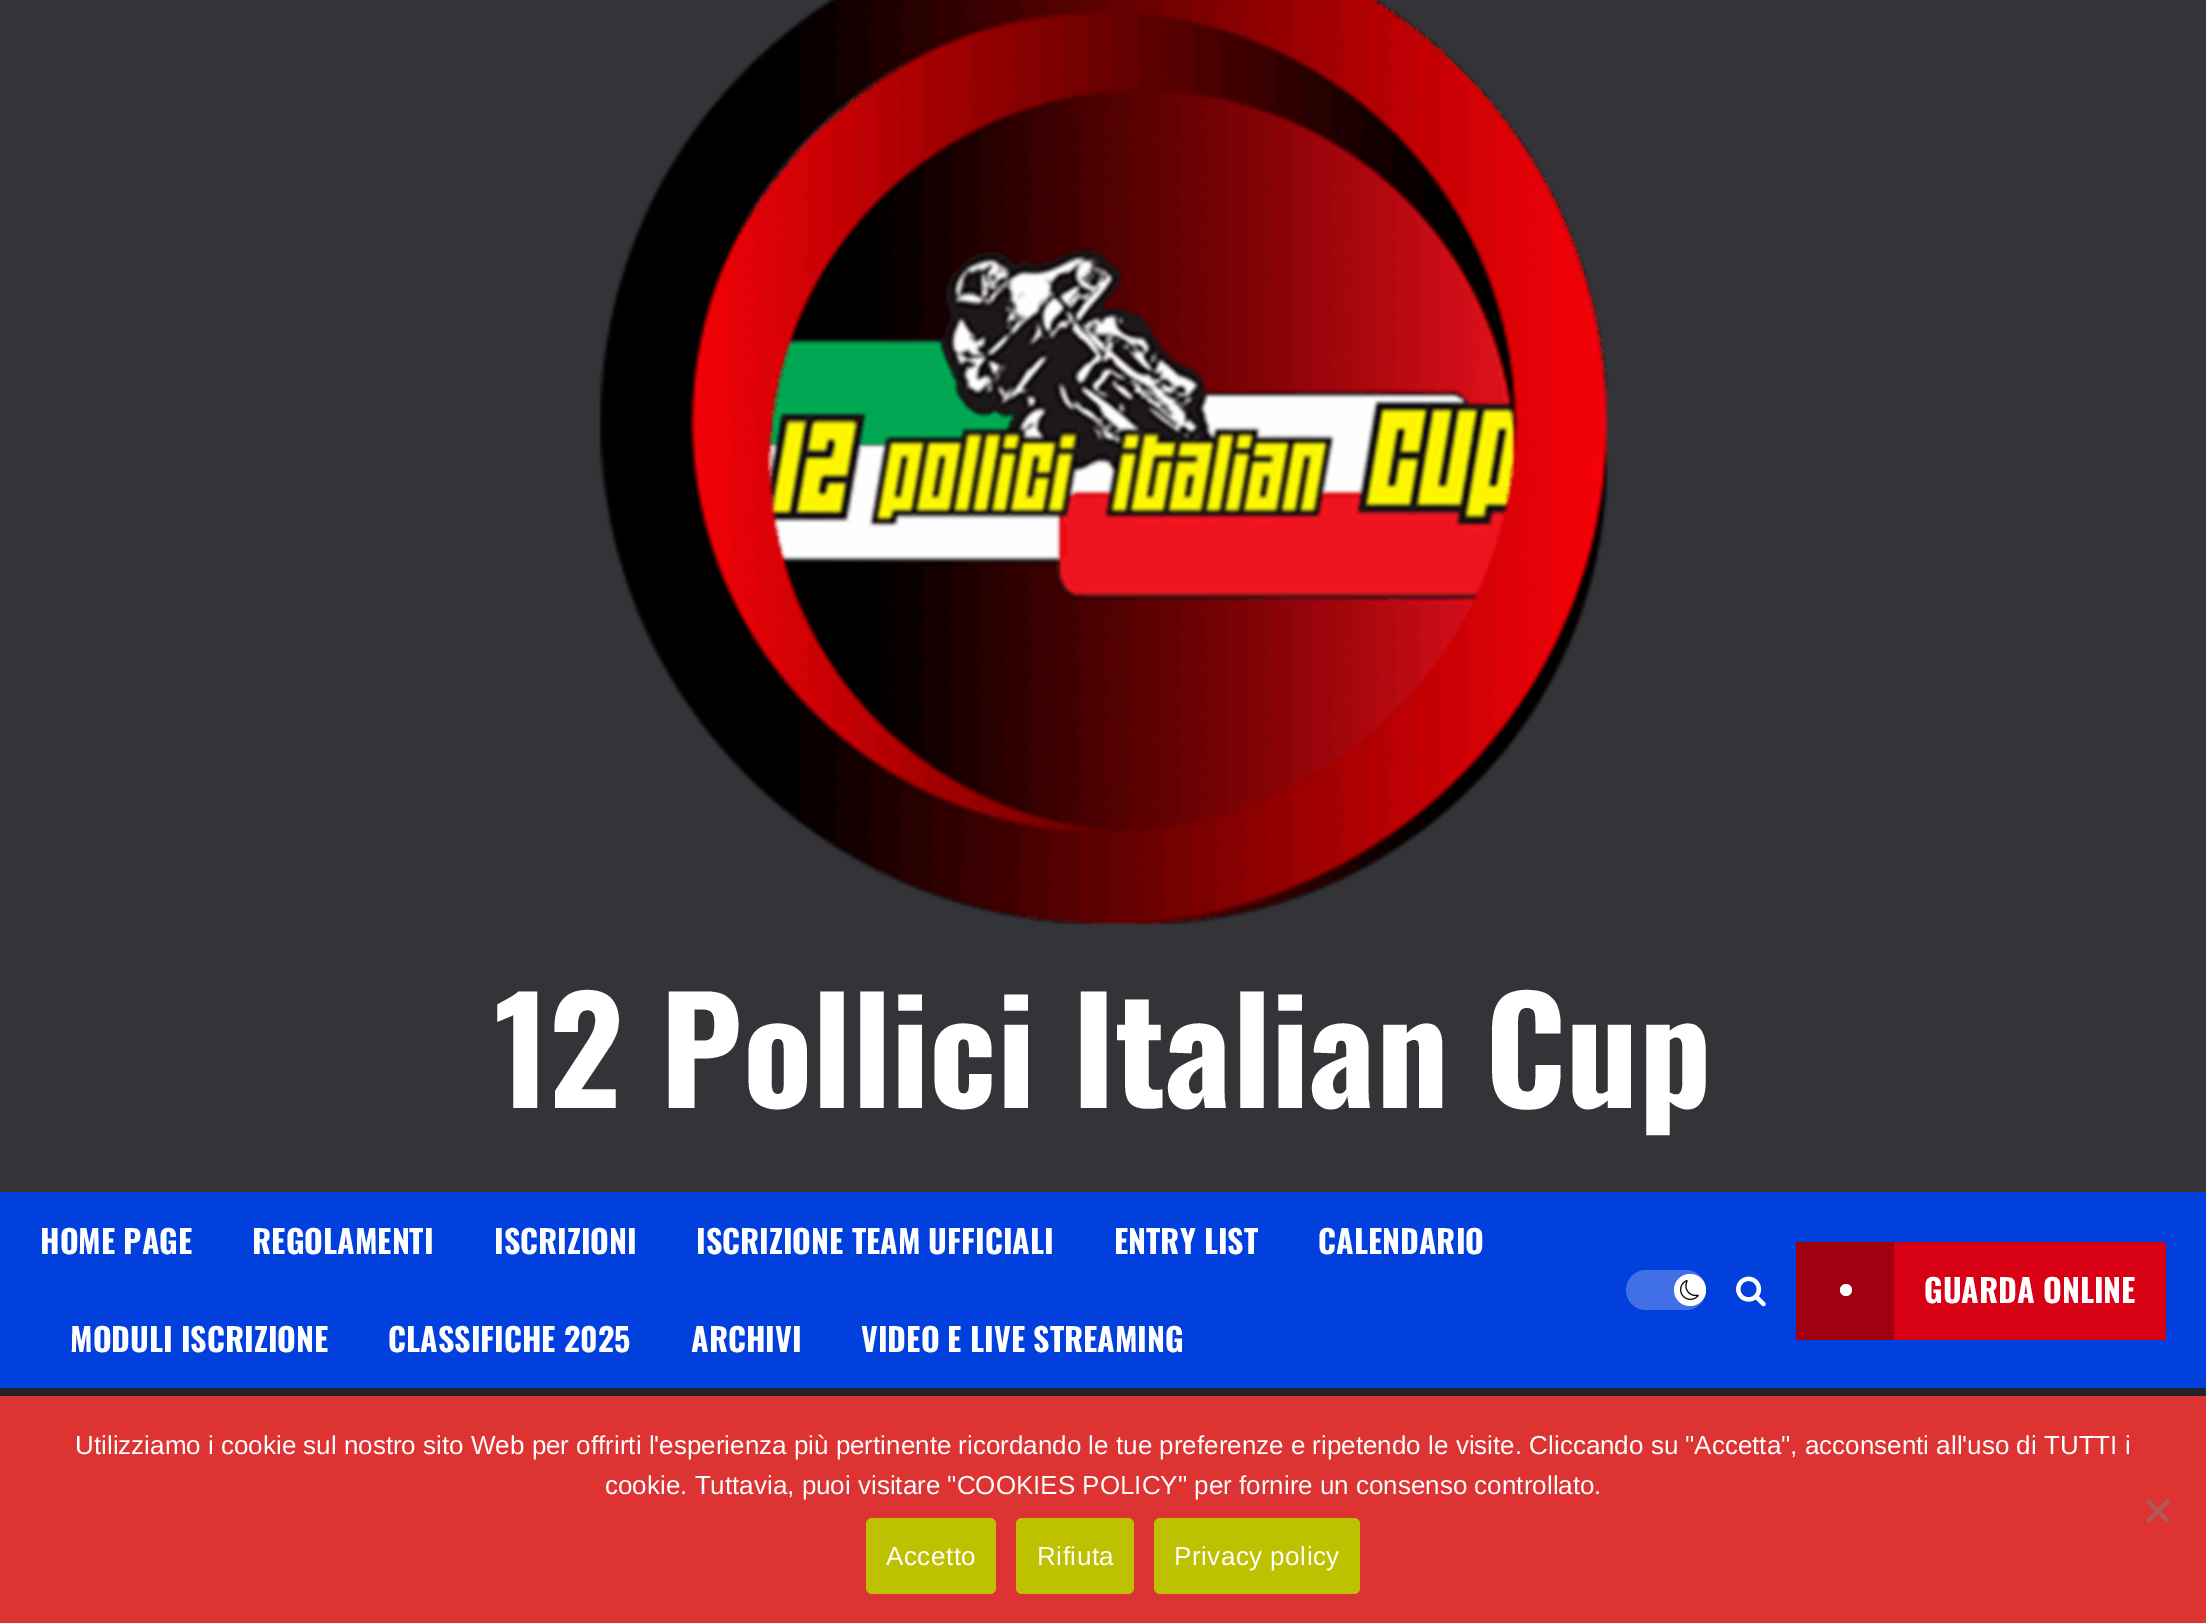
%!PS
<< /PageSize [2206 1623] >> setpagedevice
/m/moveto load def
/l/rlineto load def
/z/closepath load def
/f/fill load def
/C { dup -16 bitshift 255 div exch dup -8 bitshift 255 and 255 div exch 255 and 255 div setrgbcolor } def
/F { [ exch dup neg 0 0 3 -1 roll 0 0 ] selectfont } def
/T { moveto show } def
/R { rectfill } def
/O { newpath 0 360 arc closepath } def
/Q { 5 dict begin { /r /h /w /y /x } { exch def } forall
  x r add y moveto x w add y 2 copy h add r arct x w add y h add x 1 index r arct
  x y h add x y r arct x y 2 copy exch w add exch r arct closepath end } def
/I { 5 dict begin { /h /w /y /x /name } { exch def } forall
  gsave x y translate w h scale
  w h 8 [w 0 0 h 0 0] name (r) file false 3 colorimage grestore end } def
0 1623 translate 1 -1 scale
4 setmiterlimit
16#242428 C
0 0 2206 1623 R
16#343438 C
0 0 2206 1192 R
(1.rgb) 599 0 1010 925 I
/Oswald-Bold 144 F
16#FFFFFF C
(12 Pollici Italian Cup) 494 1108 T
16#0140DD C
0 1192 2206 196 R
/Oswald-Bold 32 F
16#FFFFFF C
(HOME PAGE) 40 1254 T
(REGOLAMENTI) 252 1254 T
(ISCRIZIONI) 494 1254 T
(ISCRIZIONE TEAM UFFICIALI) 696 1254 T
(ENTRY LIST) 1114 1254 T
(CALENDARIO) 1318 1254 T
(MODULI ISCRIZIONE) 70 1352 T
(CLASSIFICHE 2025) 388 1352 T
(ARCHIVI) 691 1352 T
(VIDEO E LIVE STREAMING) 861 1352 T
16#4170E6 C
1626 1270 80 40 20 Q f
16#FFFFFF C
1690 1290 16 O f
(2.rgb) 1680 1280 19 20 I
(3.rgb) 1736 1276 30 31 I
16#D70015 C
1894 1242 272 98 R
16#A10010 C
1796 1242 98 98 R
16#FFFFFF C
1846 1290 6 O f
(GUARDA ONLINE) 1924 1303 T
16#DD3333 C
0 1396 2206 227 R
/LiberationSans-Regular 26 F
16#FFFFFF C
(Utilizziamo i cookie sul nostro sito Web per offrirti l'esperienza più pertinente ricordando le tue preferenze e ripetendo le visite. Cliccando su "Accetta", acconsenti all'uso di TUTTI i) 75 1454 T
(cookie. Tuttavia, puoi visitare "COOKIES POLICY" per fornire un consenso controllato.) 605 1494 T
16#AF5A5A C
2167 1499 m 3 3 l -21 21 l -3 -3 l z f
2146 1502 m 3 -3 l 21 21 l -3 3 l z f
16#BEC100 C
866 1518 130 76 6 Q f
16#FFFFFF C
886 1565 m .5 0 (Accetto) ashow
16#BEC100 C
1016 1518 118 76 6 Q f
16#FFFFFF C
1037 1565 m .5 0 (Rifiuta) ashow
16#BEC100 C
1154 1518 206 76 6 Q f
16#FFFFFF C
1174 1565 m .5 0 (Privacy policy) ashow
showpage
